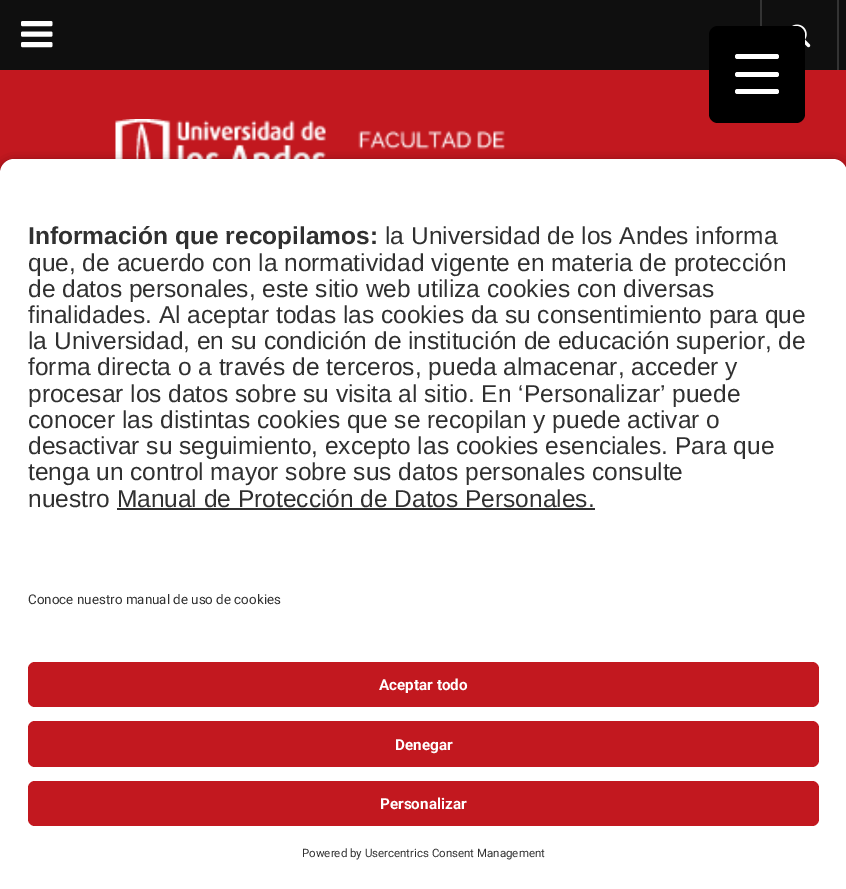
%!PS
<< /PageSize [846 889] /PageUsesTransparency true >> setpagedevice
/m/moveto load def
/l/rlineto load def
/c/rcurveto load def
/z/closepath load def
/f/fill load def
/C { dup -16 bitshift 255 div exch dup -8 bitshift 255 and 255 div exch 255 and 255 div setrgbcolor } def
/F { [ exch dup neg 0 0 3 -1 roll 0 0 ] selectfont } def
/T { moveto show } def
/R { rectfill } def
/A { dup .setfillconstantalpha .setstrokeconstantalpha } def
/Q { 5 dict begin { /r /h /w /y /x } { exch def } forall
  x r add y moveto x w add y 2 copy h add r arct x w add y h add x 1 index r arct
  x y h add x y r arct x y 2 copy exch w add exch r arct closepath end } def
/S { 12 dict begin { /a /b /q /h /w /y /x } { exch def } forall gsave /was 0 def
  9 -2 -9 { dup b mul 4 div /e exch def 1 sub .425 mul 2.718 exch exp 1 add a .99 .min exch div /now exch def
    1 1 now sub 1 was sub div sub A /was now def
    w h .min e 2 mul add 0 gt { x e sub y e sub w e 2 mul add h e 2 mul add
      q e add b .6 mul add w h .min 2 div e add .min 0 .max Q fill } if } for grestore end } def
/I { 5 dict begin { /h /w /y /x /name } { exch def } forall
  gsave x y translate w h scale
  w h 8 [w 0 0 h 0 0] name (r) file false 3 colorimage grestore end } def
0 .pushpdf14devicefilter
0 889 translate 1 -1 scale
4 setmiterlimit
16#0F0F0F C
0 0 846 889 R
(1.rgb) 21 21 32 27 I
16#333333 C
837 0 2 70 R
760 0 2 26 R
(2.rgb) 792 24 19 24 I
16#C2181F C
0 70 846 103 R
(3.rgb) 115 119 390 40 I
16#000000 C
709 26 96 97 9 Q f
16#FFFFFF C
735 72 44 5 2.5 Q f
735 54 44 5 2.5 Q f
735 89 44 5 2.5 Q f
16#000000 C
0 165 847 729 14 6 .8 S
16#FFFFFF C
14 159 m 819 0 l 7.5 0 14 6.5 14 14 c 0 389 l -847 0 l 0 -389 l 0 -7.5 6.5 -14 14 -14 c z f
/LiberationSans-Bold 24.5 F
16#303030 C
(Información que recopilamos:) 28 244 T
/LiberationSans-Regular 24.5 F
(la Universidad de los Andes informa) 385 244 T
(que, de acuerdo con la normatividad vigente en materia de protección) 28 271 T
(de datos personales, este sitio web utiliza cookies con diversas) 28 297 T
(finalidades. Al aceptar todas las cookies da su consentimiento para que) 28 323 T
(la Universidad, en su condición de institución de educación superior, de) 28 349 T
(forma directa o a través de terceros, pueda almacenar, acceder y) 28 375 T
(procesar los datos sobre su visita al sitio. En ‘Personalizar’ puede) 28 402 T
(conocer las distintas cookies que se recopilan y puede activar o) 28 428 T
(desactivar su seguimiento, excepto las cookies esenciales. Para que) 28 454 T
(tenga un control mayor sobre sus datos personales consulte) 28 480 T
(nuestro Manual de Protección de Datos Personales.) 28 507 T
117 508 478 2 R
16#FFFFFF C
0 562 846 327 R
/Roboto-Regular 13.4 F
16#303030 C
(Conoce nuestro manual de uso de cookies) 28 604 T
16#C2181F C
28 662 791 45 7 Q f
/Roboto-Bold 15.25 F
16#FFFFFF C
(Aceptar todo) 379 690 T
16#C2181F C
28 721 791 46 7 Q f
16#FFFFFF C
(Denegar) 395 750 T
16#C2181F C
28 781 791 45 7 Q f
16#FFFFFF C
(Personalizar) 380 809 T
/Roboto-Regular 11.5 F
16#303030 C
(Powered by Usercentrics Consent Management) 302 857 T
.poppdf14devicefilter showpage
